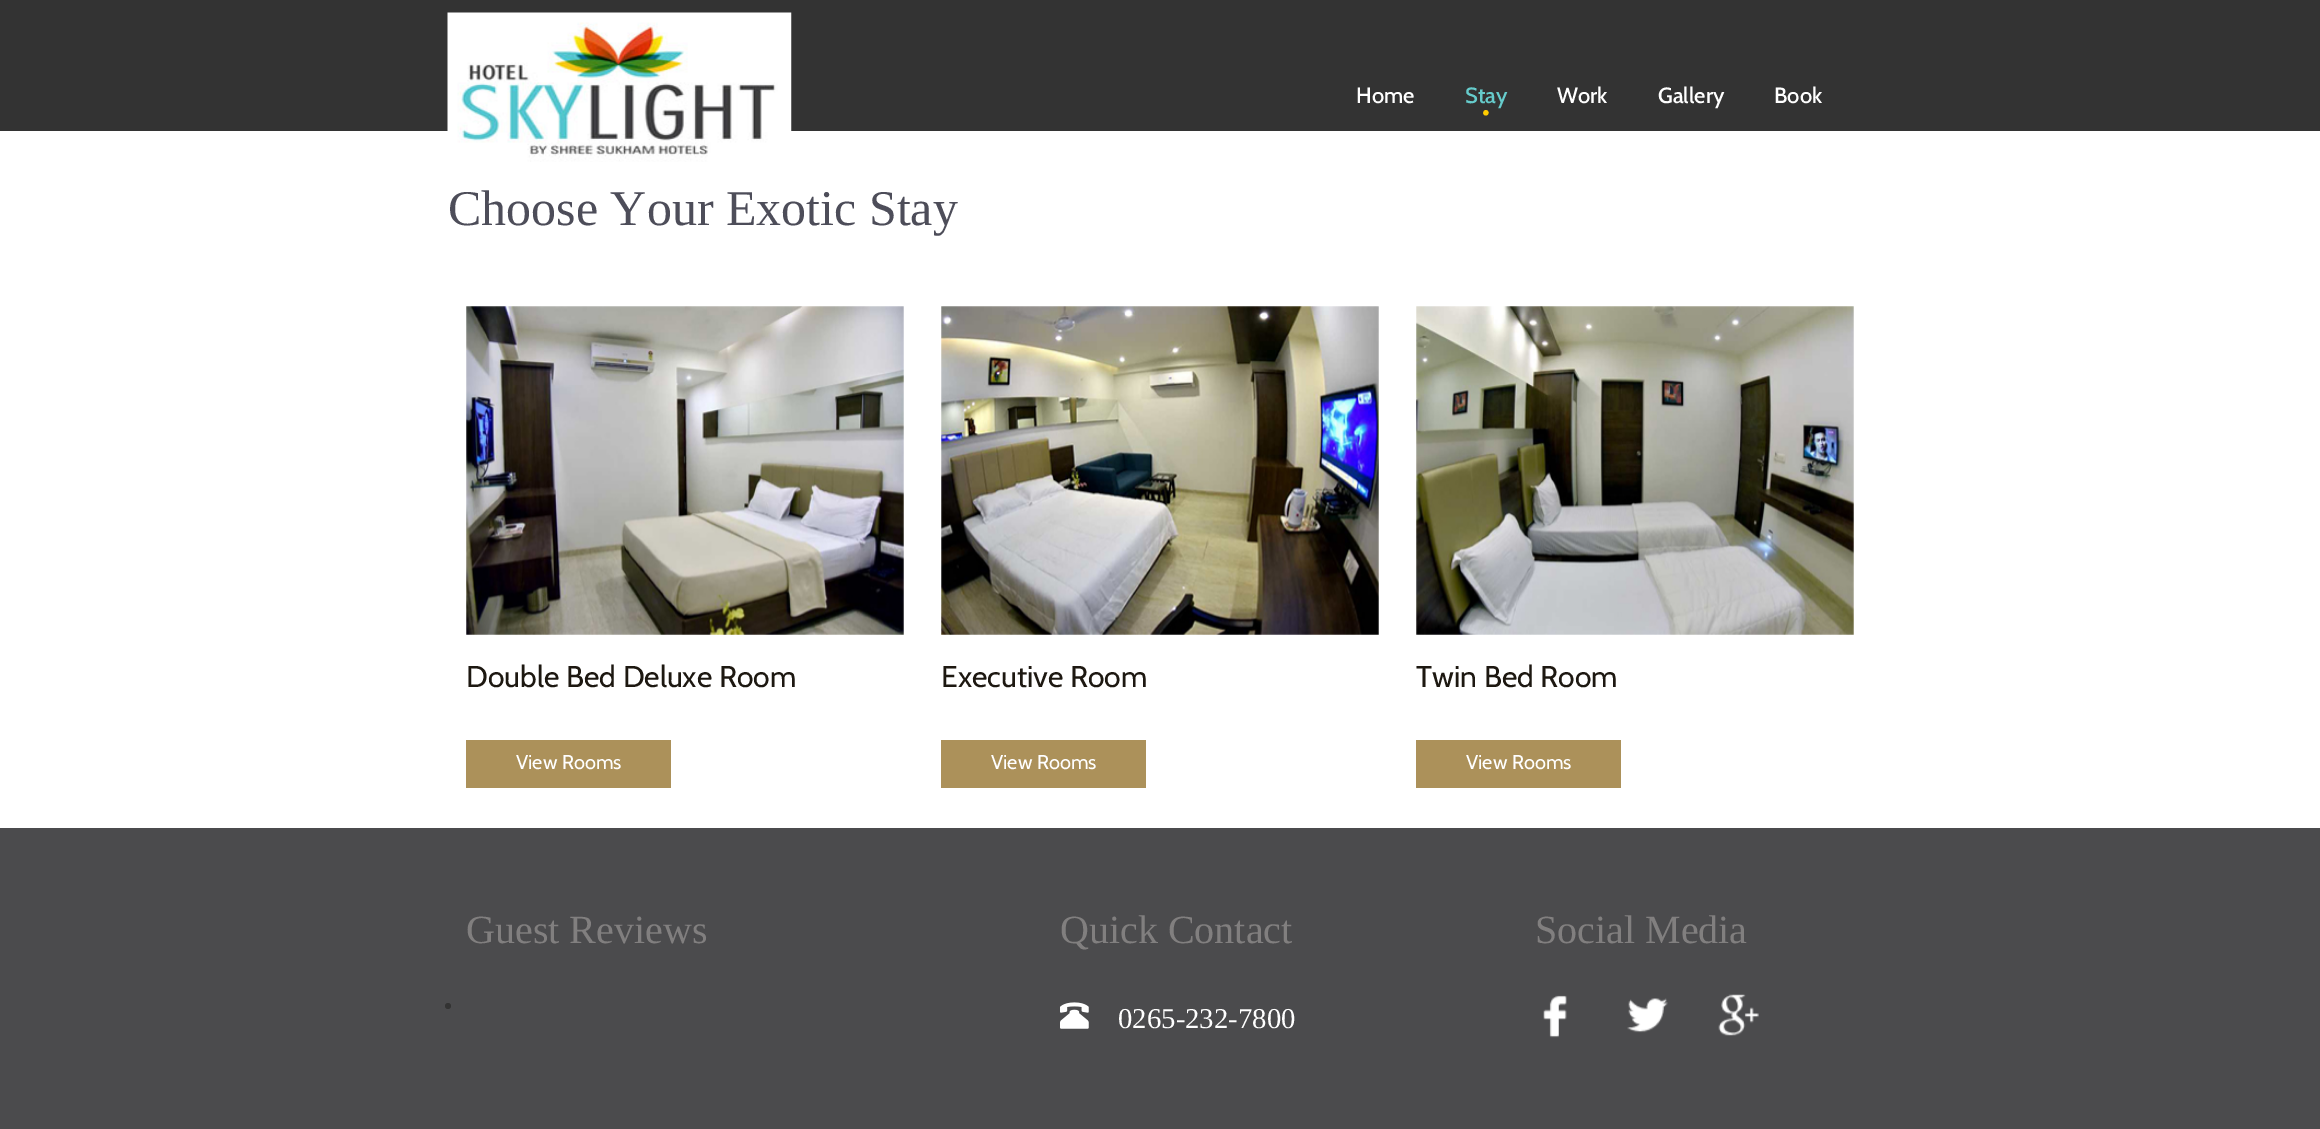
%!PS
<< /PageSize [2320 1129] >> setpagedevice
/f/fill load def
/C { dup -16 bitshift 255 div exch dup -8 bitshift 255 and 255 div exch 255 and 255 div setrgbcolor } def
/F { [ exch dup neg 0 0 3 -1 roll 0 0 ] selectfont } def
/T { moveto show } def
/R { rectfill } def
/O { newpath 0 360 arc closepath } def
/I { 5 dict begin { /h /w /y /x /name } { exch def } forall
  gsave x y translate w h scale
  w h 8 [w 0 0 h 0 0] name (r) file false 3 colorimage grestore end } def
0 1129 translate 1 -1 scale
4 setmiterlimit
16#FFFFFF C
0 0 2320 1129 R
16#333333 C
0 0 2320 131 R
(1.rgb) 447 12 345 150 I
/Cabin-Medium 22 F
16#FFFFFF C
(Home) 1356 103 T
16#66CCCC C
(Stay) 1465 103 T
/Cabin-Medium 26 F
16#FFCC00 C
(•) 1482 120 T
/Cabin-Medium 22 F
16#FFFFFF C
(Work) 1557 103 T
(Gallery) 1658 103 T
(Book) 1774 103 T
/LiberationSerif-Regular 50 F
16#4D4D59 C
(Choose Your Exotic Stay) 448 225 T
(2.rgb) 466 306 438 329 I
/Cabin-Regular 30 F
16#1D1811 C
(Double Bed Deluxe Room) 466 687 T
16#AC915A C
466 740 205 48 R
/Cabin-Regular 20 F
16#FFFFFF C
(View Rooms) 516 769 T
(3.rgb) 941 306 438 329 I
/Cabin-Regular 30 F
16#1D1811 C
(Executive Room) 941 687 T
16#AC915A C
941 740 205 48 R
/Cabin-Regular 20 F
16#FFFFFF C
(View Rooms) 991 769 T
(4.rgb) 1416 306 438 329 I
/Cabin-Regular 30 F
16#1D1811 C
(Twin Bed Room) 1416 687 T
16#AC915A C
1416 740 205 48 R
/Cabin-Regular 20 F
16#FFFFFF C
(View Rooms) 1466 769 T
16#4B4B4D C
0 828 2320 301 R
/LiberationSerif-Regular 40 F
16#817F7F C
(Guest Reviews) 466 943 T
16#333333 C
448 1006 3 O f
16#817F7F C
(Quick Contact) 1060 943 T
(5.rgb) 1060 1002 29 27 I
/LiberationSerif-Regular 28.75 F
16#FFFFFF C
(0265-232-7800) 1118 1028 T
/LiberationSerif-Regular 40 F
16#817F7F C
(Social Media) 1535 943 T
(6.rgb) 1543 995 24 43 I
(7.rgb) 1627 998 41 35 I
(8.rgb) 1718 994 41 42 I
showpage
